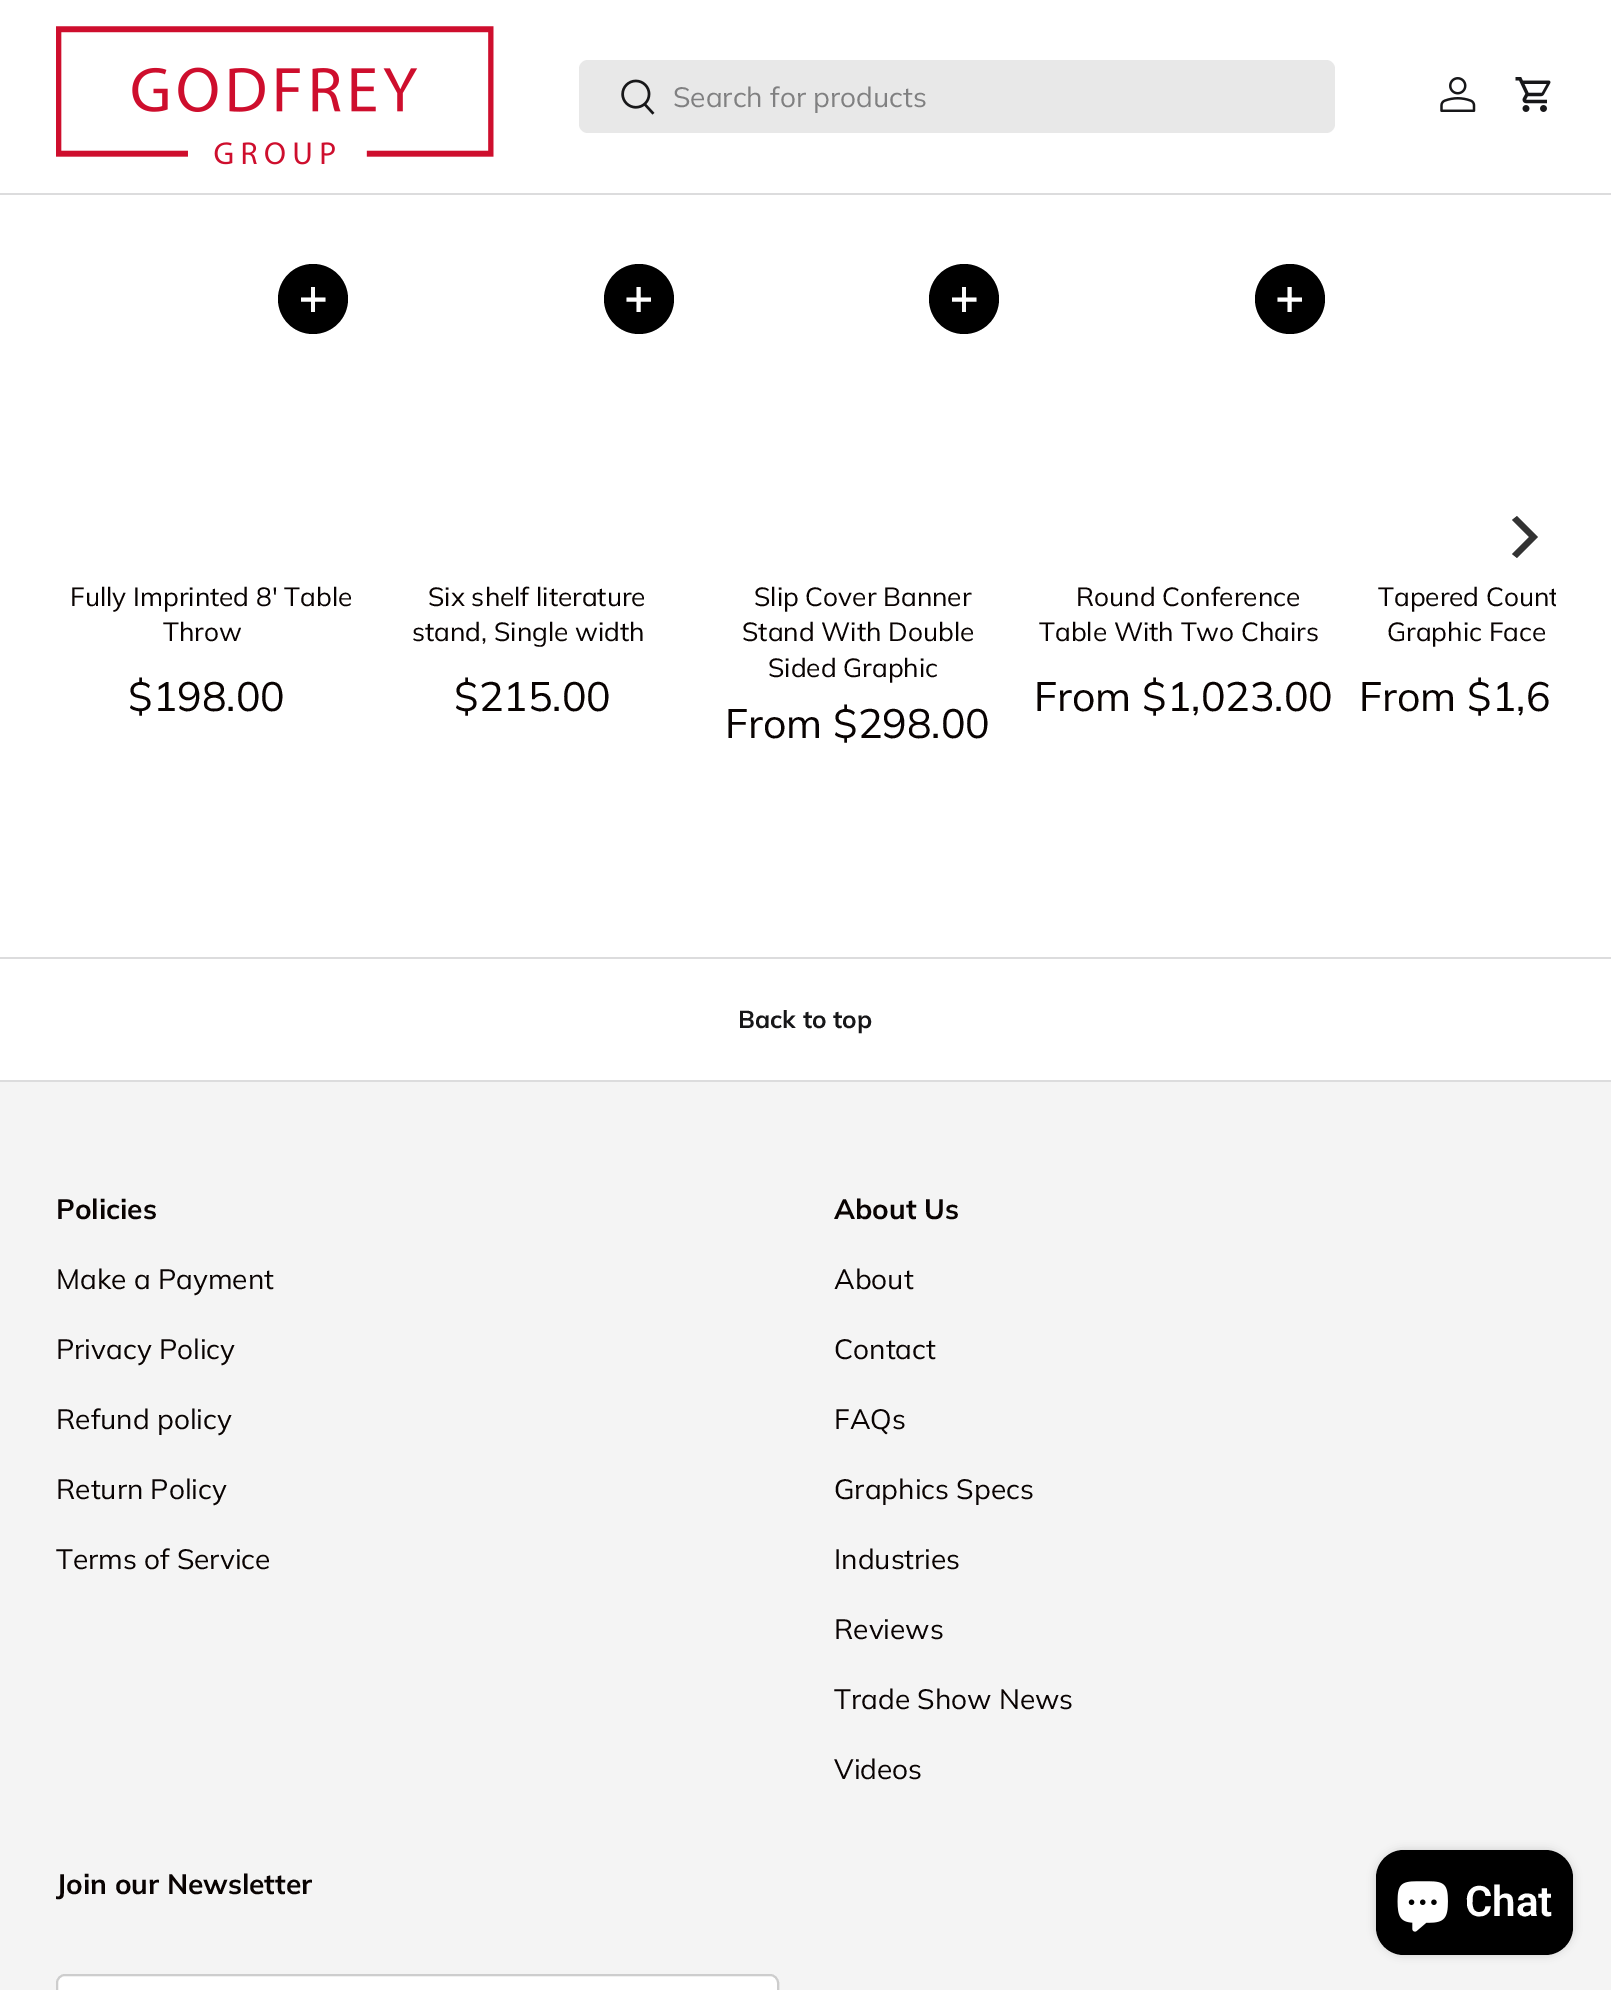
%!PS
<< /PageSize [1611 1990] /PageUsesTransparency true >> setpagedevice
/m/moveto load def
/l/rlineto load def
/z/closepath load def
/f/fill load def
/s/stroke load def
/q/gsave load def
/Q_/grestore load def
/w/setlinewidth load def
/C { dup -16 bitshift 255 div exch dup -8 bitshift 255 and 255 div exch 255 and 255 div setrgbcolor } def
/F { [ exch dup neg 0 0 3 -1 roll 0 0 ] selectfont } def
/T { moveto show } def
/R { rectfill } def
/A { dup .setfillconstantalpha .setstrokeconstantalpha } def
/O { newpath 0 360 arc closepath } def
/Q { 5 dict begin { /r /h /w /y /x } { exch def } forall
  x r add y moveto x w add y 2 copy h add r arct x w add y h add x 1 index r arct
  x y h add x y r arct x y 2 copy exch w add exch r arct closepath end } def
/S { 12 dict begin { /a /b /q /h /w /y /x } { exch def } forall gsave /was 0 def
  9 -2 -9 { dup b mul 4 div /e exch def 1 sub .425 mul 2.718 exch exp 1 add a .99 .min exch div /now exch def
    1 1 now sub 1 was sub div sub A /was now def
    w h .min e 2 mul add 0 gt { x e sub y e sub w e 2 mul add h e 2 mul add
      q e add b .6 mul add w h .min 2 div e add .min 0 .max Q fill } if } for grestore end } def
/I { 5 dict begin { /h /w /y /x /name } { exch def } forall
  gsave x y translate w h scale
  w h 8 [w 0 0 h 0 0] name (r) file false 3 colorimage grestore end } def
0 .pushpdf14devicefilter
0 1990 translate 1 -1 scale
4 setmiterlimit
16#FFFFFF C
0 0 1611 1990 R
16#DCDCDD C
0 193 1611 2 R
(1.rgb) 56 26 438 139 I
16#E8E8E8 C
579 60 756 73 9 Q f
(2.rgb) 621 79 34 36 I
/Muli-Regular 28 F
16#808081 C
(Search for products) 673 107 T
(3.rgb) 1440 77 36 35 I
(4.rgb) 1515 77 36 35 I
16#333333 C
1538 537 m -21 -21 l -5 4 l 17 17 l -17 17 l 5 4 l z f
16#000000 C
313 299 35 O f
16#F9F9F9 C
311 287 4 25 R
16#FFFFFF C
3.9 w
301 299.5 m 24.5 0 l s
/Muli-Regular 26.25 F
16#090302 C
(Fully Imprinted 8' Table) 70 606 T
(Throw) 163 641 T
/Muli-Regular 41 F
($198.00) 128 711 T
16#000000 C
639 299 35 O f
16#FFFFFF C
638.5 287 m 0 25 l 626.5 299.5 m 24.5 0 l s
/Muli-Regular 26.25 F
16#090302 C
(Six shelf literature) 428 606 T
(stand, Single width) 412 641 T
/Muli-Regular 41 F
($215.00) 454 711 T
16#000000 C
964 299 35 O f
16#F9F9F9 C
962 287 4 25 R
16#FFFFFF C
952 299.5 m 24.5 0 l s
/Muli-Regular 26.25 F
16#090302 C
(Slip Cover Banner) 754 606 T
(Stand With Double) 742 641 T
(Sided Graphic) 768 677 T
/Muli-Regular 41 F
(From $298.00) 725 738 T
16#000000 C
1290 299 35 O f
16#FFFFFF C
1289.5 287 m 0 25 l 1277.5 299.5 m 24.5 0 l s
/Muli-Regular 26.25 F
16#090302 C
(Round Conference) 1076 606 T
(Table With Two Chairs) 1039 641 T
/Muli-Regular 41 F
(From $1,023.00) 1034 711 T
q
56 256 1500 563 rectclip
/Muli-Regular 26.25 F
(Tapered Count) 1378 606 T
Q_
/Muli-Regular 26.25 F
(Graphic Face) 1387 641 T
/Muli-Regular 41 F
(From $1,6) 1359 711 T
16#DCDCDD C
0 957 1611 2 R
0 1080 1611 2 R
/Muli-Bold 24.5 F
16#171719 C
(Back to top) 738 1028 T
16#F4F4F4 C
0 1082 1611 908 R
/Muli-Bold 28 F
16#090302 C
(Policies) 56 1219 T
/Muli-Regular 28 F
(Make a Payment) 56 1289 T
(Privacy Policy) 56 1359 T
(Refund policy) 56 1429 T
(Return Policy) 56 1499 T
(Terms of Service) 56 1569 T
/Muli-Bold 28 F
(About Us) 834 1219 T
/Muli-Regular 28 F
(About) 834 1289 T
(Contact) 834 1359 T
(FAQs) 834 1429 T
(Graphics Specs) 834 1499 T
(Industries) 834 1569 T
(Reviews) 834 1639 T
(Trade Show News) 834 1709 T
(Videos) 834 1779 T
/Muli-Bold 28 F
(Join our Newsletter) 56 1894 T
16#FFFFFF C
56 1974 723 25 9 Q f
0.2 A
16#070707 C
2 w
57 1975 721 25 8 Q s
1 A
16#000000 C
1376 1850 197 105 28 4.5 .15 S
1376 1850 197 105 28 Q f
(5.rgb) 1397 1881 51 51 I
/Roboto-SemiBold 42 F
16#FFFFFF C
(Chat) 1465 1916 T
.poppdf14devicefilter showpage
